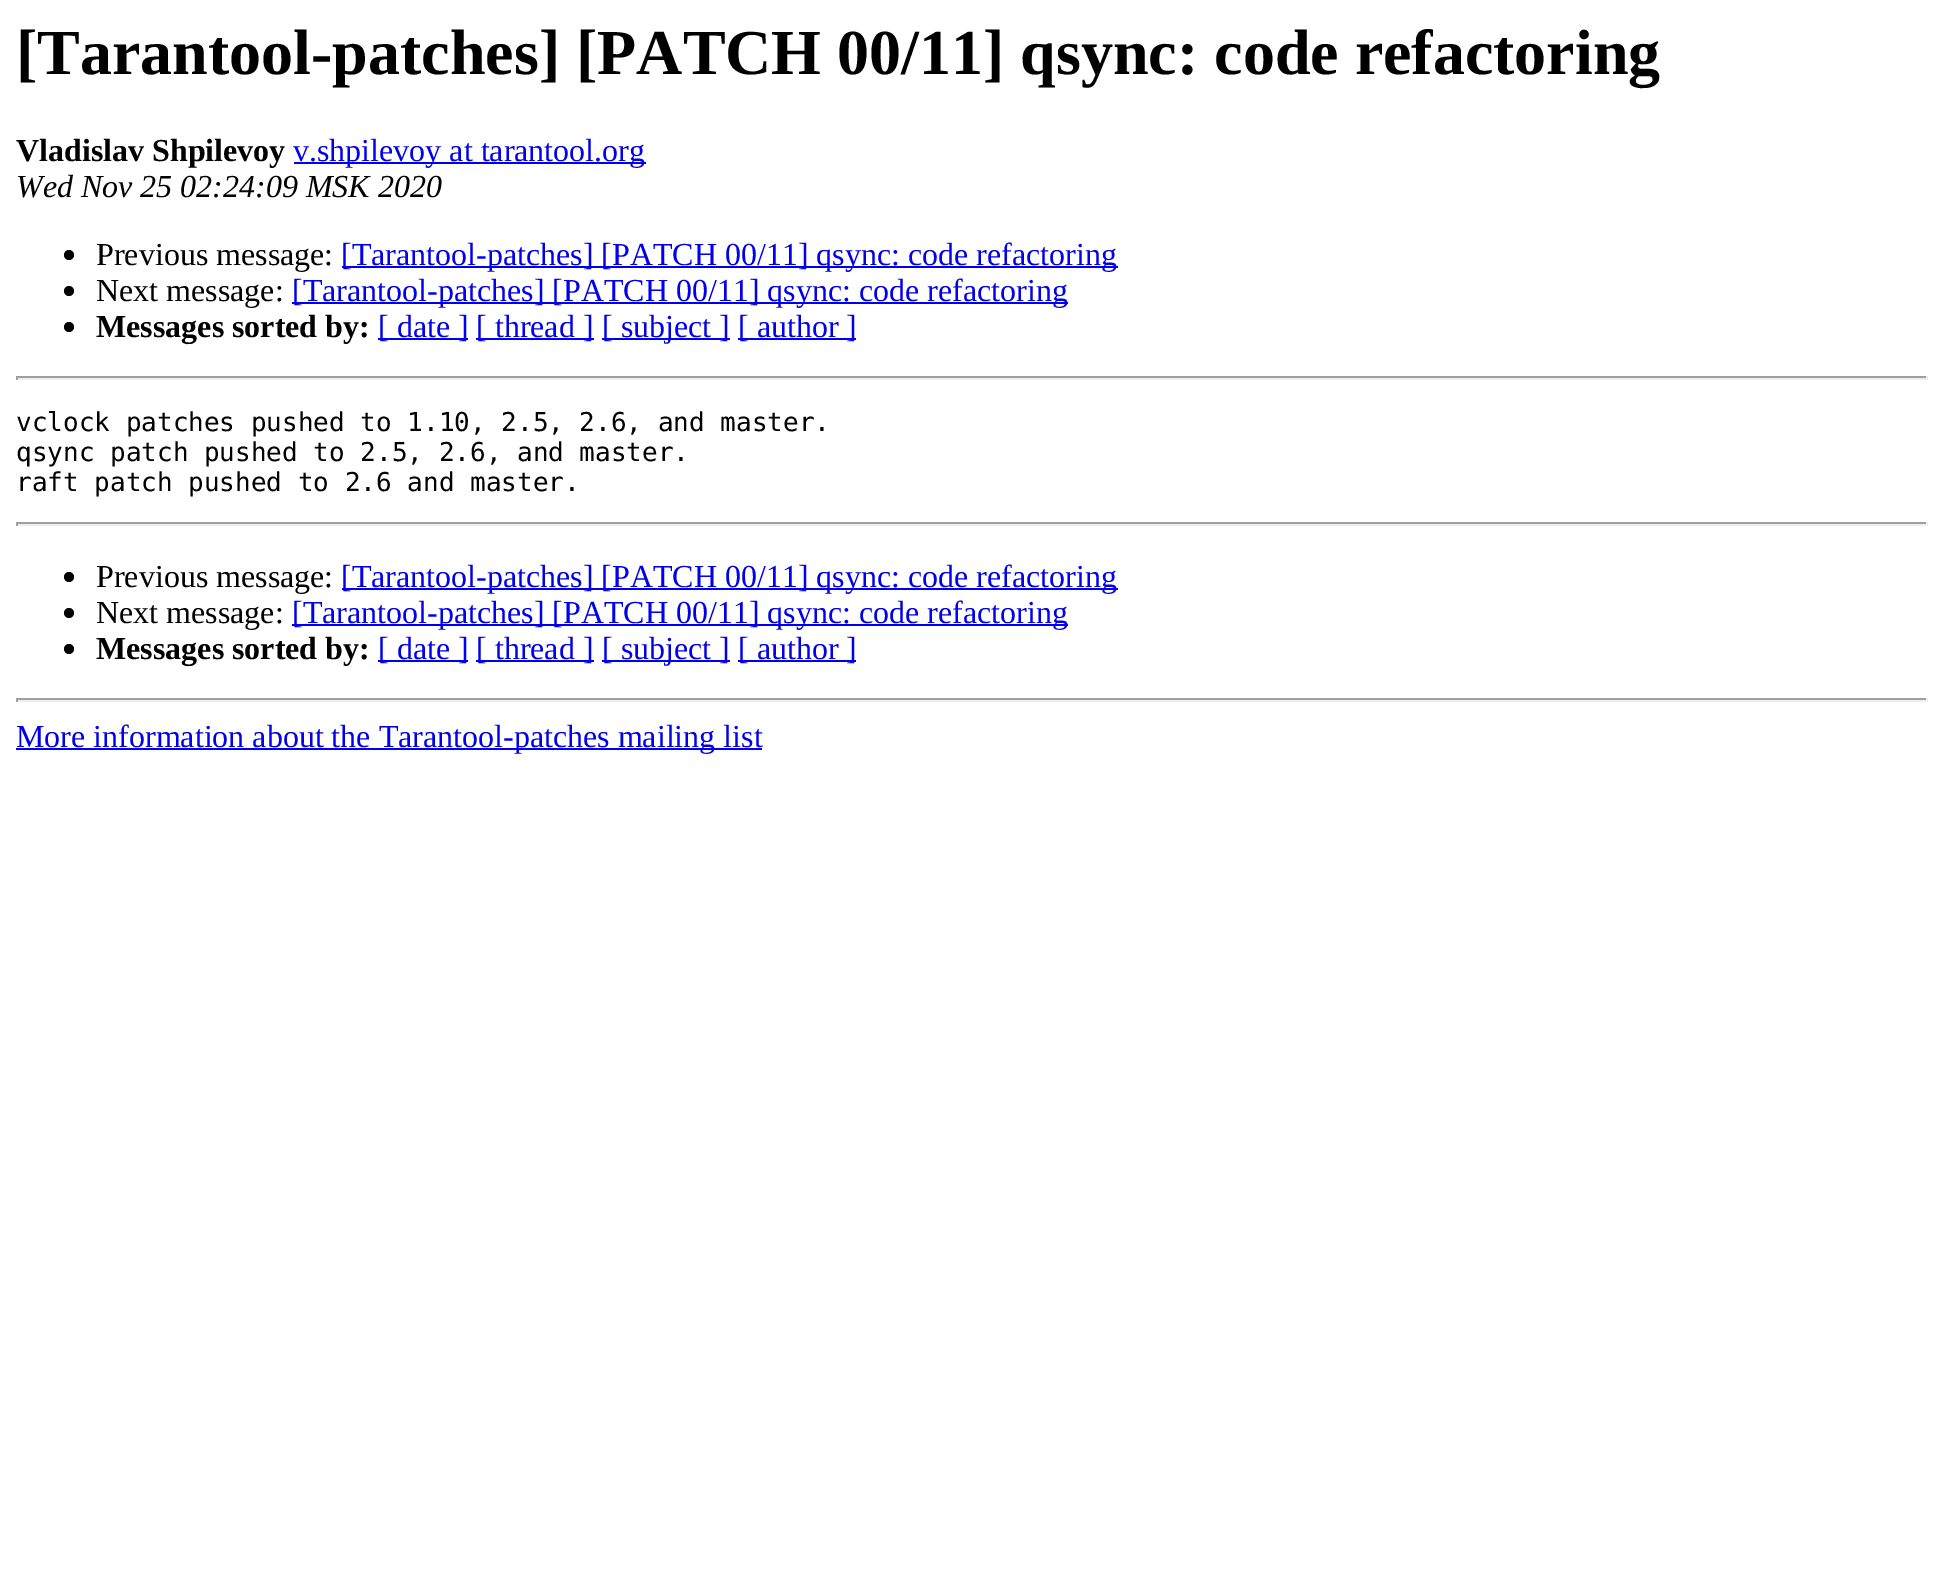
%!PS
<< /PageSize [1943 1569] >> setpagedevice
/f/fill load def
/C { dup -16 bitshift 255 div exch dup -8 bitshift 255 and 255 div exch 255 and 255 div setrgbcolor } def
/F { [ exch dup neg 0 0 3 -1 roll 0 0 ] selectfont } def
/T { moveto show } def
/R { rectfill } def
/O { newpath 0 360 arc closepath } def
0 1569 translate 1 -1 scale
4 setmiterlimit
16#FFFFFF C
0 0 1943 1569 R
/LiberationSerif-Bold 64 F
16#000000 C
([Tarantool-patches] [PATCH 00/11] qsync: code refactoring) 16 74 T
/LiberationSerif-Bold 32 F
(Vladislav Shpilevoy) 16 161 T
16#0000EE C
294 162 352 2 R
/LiberationSerif-Regular 32 F
(v.shpilevoy at tarantool.org) 293 161 T
/LiberationSerif-Italic 32 F
16#000000 C
(Wed Nov 25 02:24:09 MSK 2020) 16 197 T
69 255 5 O f
/LiberationSerif-Regular 32 F
(Previous message:) 96 265 T
16#0000EE C
342 266 776 2 R
([Tarantool-patches] [PATCH 00/11] qsync: code refactoring) 341 265 T
16#000000 C
69 291 5 O f
(Next message:) 96 301 T
16#0000EE C
292 302 776 2 R
([Tarantool-patches] [PATCH 00/11] qsync: code refactoring) 292 301 T
16#000000 C
69 327 5 O f
/LiberationSerif-Bold 32 F
(Messages sorted by:) 96 337 T
16#0000EE C
378 338 90 2 R
/LiberationSerif-Regular 32 F
([ date ]) 378 337 T
476 338 118 2 R
([ thread ]) 476 337 T
602 338 128 2 R
([ subject ]) 602 337 T
738 338 118 2 R
([ author ]) 738 337 T
16#9F9F9F C
16 376 1912 2 R
16#EEEEEE C
1926 376 2 4 R
16 378 1912 2 R
16#9F9F9F C
16 376 2 4 R
/DejaVuSansMono-Regular 26 F
16#000000 C
(vclock patches pushed to 1.10, 2.5, 2.6, and master.) 16 431 T
(qsync patch pushed to 2.5, 2.6, and master.) 16 461 T
(raft patch pushed to 2.6 and master.) 16 491 T
16#9F9F9F C
16 522 1912 2 R
16#EEEEEE C
1926 522 2 4 R
16 524 1912 2 R
16#9F9F9F C
16 522 2 4 R
16#000000 C
69 577 5 O f
/LiberationSerif-Regular 32 F
(Previous message:) 96 587 T
16#0000EE C
342 588 776 2 R
([Tarantool-patches] [PATCH 00/11] qsync: code refactoring) 341 587 T
16#000000 C
69 613 5 O f
(Next message:) 96 623 T
16#0000EE C
292 624 776 2 R
([Tarantool-patches] [PATCH 00/11] qsync: code refactoring) 292 623 T
16#000000 C
69 649 5 O f
/LiberationSerif-Bold 32 F
(Messages sorted by:) 96 659 T
16#0000EE C
378 660 90 2 R
/LiberationSerif-Regular 32 F
([ date ]) 378 659 T
476 660 118 2 R
([ thread ]) 476 659 T
602 660 128 2 R
([ subject ]) 602 659 T
738 660 118 2 R
([ author ]) 738 659 T
16#9F9F9F C
16 698 1912 2 R
16#EEEEEE C
1926 698 2 4 R
16 700 1912 2 R
16#9F9F9F C
16 698 2 4 R
16#0000EE C
16 748 746 2 R
(More information about the Tarantool-patches mailing list) 16 747 T
showpage
